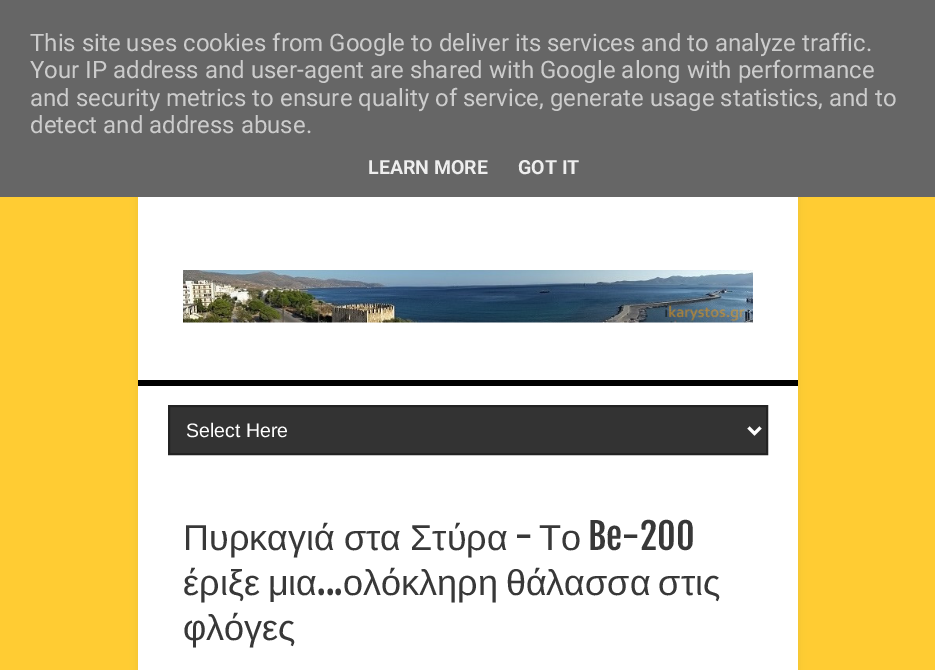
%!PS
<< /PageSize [935 670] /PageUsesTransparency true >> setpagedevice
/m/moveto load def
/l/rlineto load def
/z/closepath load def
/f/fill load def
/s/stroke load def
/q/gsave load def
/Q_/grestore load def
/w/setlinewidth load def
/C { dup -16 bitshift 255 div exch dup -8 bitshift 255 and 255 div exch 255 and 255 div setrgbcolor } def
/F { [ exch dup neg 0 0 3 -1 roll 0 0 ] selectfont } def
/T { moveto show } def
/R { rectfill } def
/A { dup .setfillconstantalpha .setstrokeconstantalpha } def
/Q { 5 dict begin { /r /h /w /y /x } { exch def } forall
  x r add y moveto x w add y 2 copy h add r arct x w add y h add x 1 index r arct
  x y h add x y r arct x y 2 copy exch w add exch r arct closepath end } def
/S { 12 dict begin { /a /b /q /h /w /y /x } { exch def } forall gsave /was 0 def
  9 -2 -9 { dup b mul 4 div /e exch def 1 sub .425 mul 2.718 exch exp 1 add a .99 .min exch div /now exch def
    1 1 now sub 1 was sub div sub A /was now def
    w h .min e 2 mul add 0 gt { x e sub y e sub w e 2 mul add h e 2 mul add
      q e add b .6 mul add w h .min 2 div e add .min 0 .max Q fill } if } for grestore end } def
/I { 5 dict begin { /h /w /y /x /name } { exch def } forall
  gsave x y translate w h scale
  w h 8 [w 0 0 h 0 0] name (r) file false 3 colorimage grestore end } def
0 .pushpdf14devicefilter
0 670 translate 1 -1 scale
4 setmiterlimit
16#FFCC33 C
0 0 935 670 R
16#505050 C
138 0 660 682 0 4 .1 S
16#666666 C
0 0 935 197 R
/Roboto-Regular 24 F
16#CCCCCC C
(This site uses cookies from Google to deliver its services and to analyze traffic.) 30 51 T
(Your IP address and user-agent are shared with Google along with performance) 30 78 T
(and security metrics to ensure quality of service, generate usage statistics, and to) 30 106 T
(detect and address abuse.) 30 133 T
/Roboto-Bold 19.5 F
16#EEEEEE C
(LEARN MORE) 368 174 T
(GOT IT) 518 174 T
16#FFFFFF C
138 197 660 473 R
(1.rgb) 183 270 570 53 I
16#000000 C
138 380 660 6 R
16#333333 C
169 406 m 598 0 l 0 48 l -598 0 l z q f Q_
16#232323 C
2 w
s
16#FFFFFF C
3 w
748.5 427.5 m 6 6 l 6 -6 l s
/LiberationSans-Regular 19.5 F
(Select Here) 186 437 T
/LiberationSans-Regular 36 F
16#383838 C
183 550 m -1 0 32 (Πυρκαγιά στα Στύρα) widthshow
/FjallaOne-Regular 36 F
(-) 515 550 T
/LiberationSans-Regular 36 F
(Το) 539 550 T
/FjallaOne-Regular 36 F
(Be-200) 588 550 T
/LiberationSans-Regular 36 F
183 595 m -2 0 32 (έριξε μια) widthshow
/FjallaOne-Regular 36 F
(...) 317 595 T
/LiberationSans-Regular 36 F
343 595 m -2 0 32 (ολόκληρη θάλασσα στις) widthshow
(φλόγες) 183 640 T
.poppdf14devicefilter showpage
